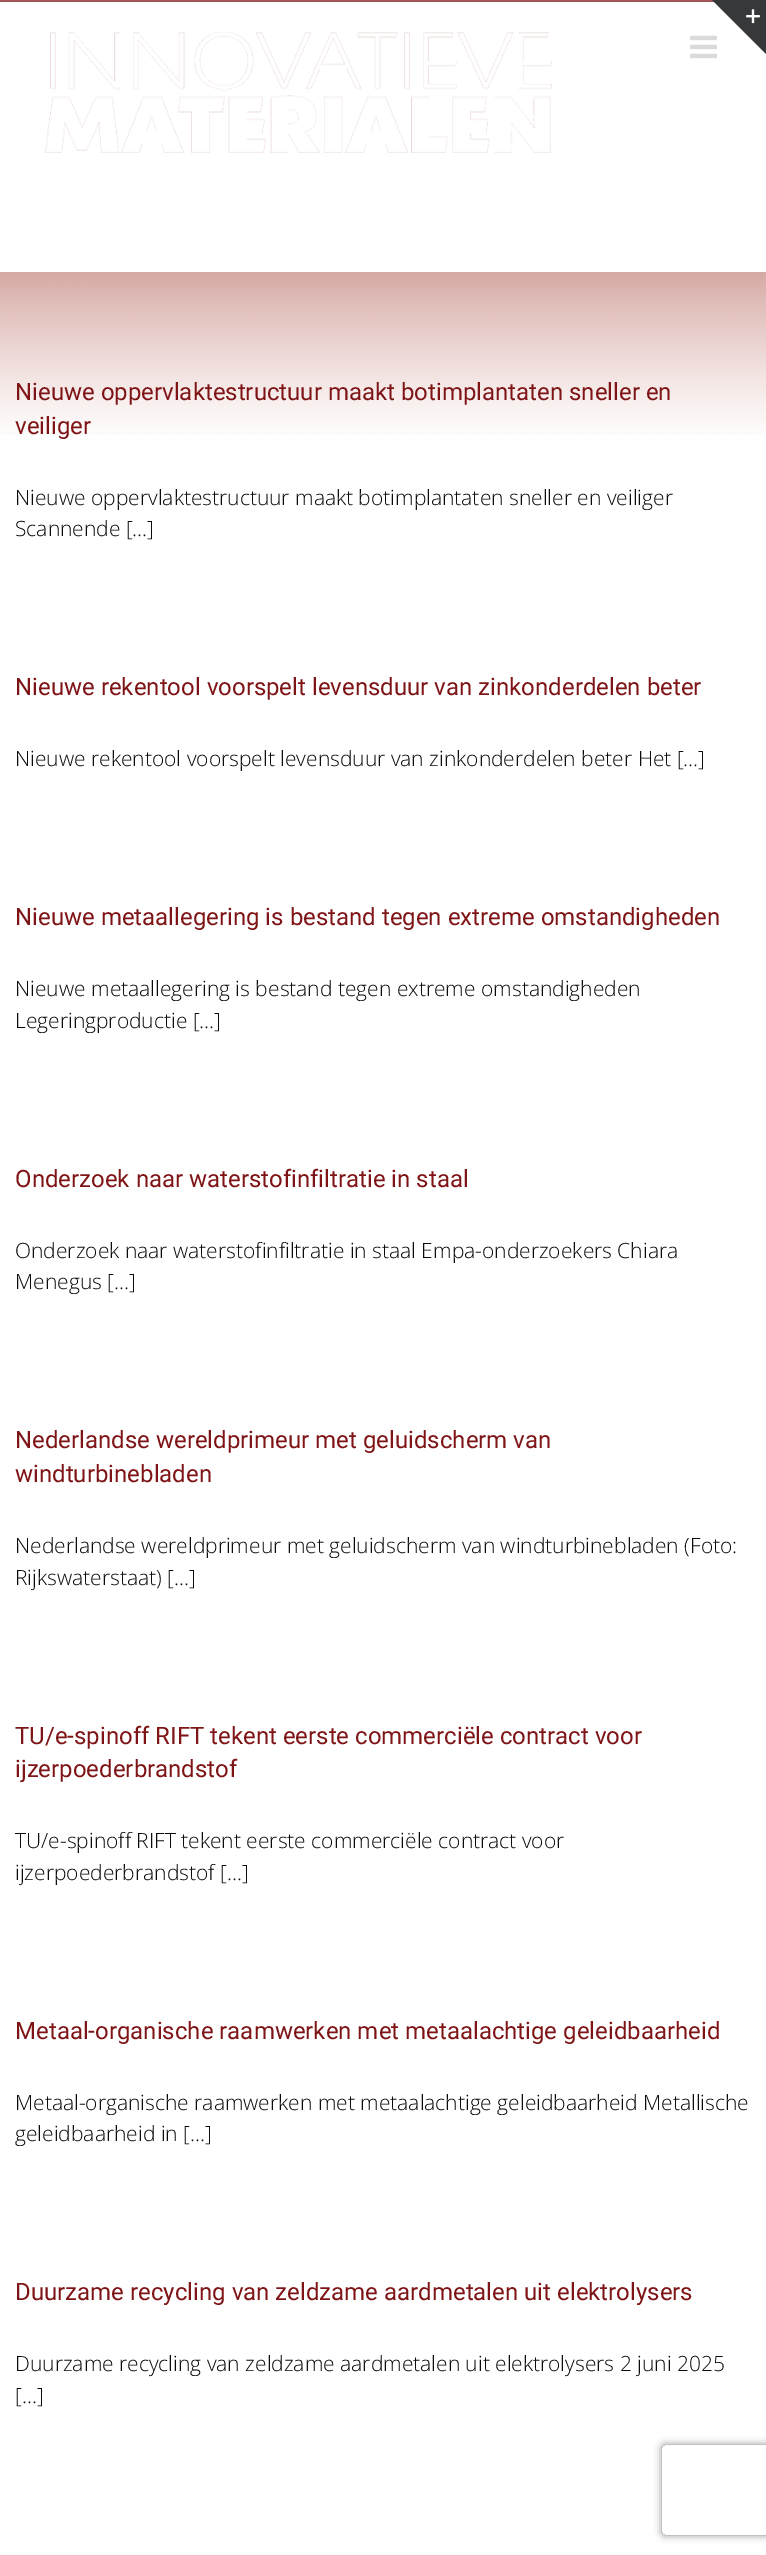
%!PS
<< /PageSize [766 2555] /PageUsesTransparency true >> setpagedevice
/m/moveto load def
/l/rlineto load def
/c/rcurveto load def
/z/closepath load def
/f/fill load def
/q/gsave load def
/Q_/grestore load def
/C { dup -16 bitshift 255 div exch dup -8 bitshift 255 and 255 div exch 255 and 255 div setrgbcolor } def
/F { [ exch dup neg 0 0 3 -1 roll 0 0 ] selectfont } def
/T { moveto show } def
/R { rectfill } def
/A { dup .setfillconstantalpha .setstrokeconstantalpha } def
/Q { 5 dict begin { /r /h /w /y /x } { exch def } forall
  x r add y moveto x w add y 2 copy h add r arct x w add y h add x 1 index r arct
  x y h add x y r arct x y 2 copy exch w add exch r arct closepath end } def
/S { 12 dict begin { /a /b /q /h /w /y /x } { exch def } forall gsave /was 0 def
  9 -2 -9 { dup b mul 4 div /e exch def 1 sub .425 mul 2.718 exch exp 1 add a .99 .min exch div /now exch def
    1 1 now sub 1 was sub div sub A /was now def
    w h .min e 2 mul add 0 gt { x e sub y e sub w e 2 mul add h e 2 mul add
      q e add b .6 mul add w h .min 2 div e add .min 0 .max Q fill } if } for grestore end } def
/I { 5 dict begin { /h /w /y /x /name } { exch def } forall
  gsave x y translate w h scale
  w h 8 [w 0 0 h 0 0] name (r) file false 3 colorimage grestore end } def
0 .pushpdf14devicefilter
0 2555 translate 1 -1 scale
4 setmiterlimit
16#FFFFFF C
0 0 766 2555 R
(1.rgb) 0 272 766 163 I
16#A25456 C
0 0 714 2 R
(2.rgb) 45 32 507 121 I
(3.rgb) 690 35 27 24 I
16#363839 C
712 0 m 54 0 l 0 54 l z f
(4.rgb) 746 9 14 15 I
/Roboto-Regular 24 F
16#7F1416 C
(Nieuwe oppervlaktestructuur maakt botimplantaten sneller en) 15 400 T
(veiliger) 15 434 T
/OpenSans-Light 21 F
16#0A0A0A C
(Nieuwe oppervlaktestructuur maakt botimplantaten sneller en veiliger) 15 505 T
(Scannende [...]) 15 536 T
/Roboto-Regular 24 F
16#7F1416 C
(Nieuwe rekentool voorspelt levensduur van zinkonderdelen beter) 15 695 T
/OpenSans-Light 21 F
16#0A0A0A C
(Nieuwe rekentool voorspelt levensduur van zinkonderdelen beter Het [...]) 15 766 T
/Roboto-Regular 24 F
16#7F1416 C
(Nieuwe metaallegering is bestand tegen extreme omstandigheden) 15 925 T
/OpenSans-Light 21 F
16#0A0A0A C
(Nieuwe metaallegering is bestand tegen extreme omstandigheden) 15 996 T
(Legeringproductie [...]) 15 1028 T
/Roboto-Regular 24 F
16#7F1416 C
(Onderzoek naar waterstofinfiltratie in staal) 15 1187 T
/OpenSans-Light 21 F
16#0A0A0A C
(Onderzoek naar waterstofinfiltratie in staal Empa-onderzoekers Chiara) 15 1258 T
(Menegus [...]) 15 1289 T
/Roboto-Regular 24 F
16#7F1416 C
(Nederlandse wereldprimeur met geluidscherm van) 15 1448 T
(windturbinebladen) 15 1482 T
/OpenSans-Light 21 F
16#0A0A0A C
(Nederlandse wereldprimeur met geluidscherm van windturbinebladen \(Foto:) 15 1553 T
(Rijkswaterstaat\) [...]) 15 1585 T
/Roboto-Regular 24 F
16#7F1416 C
(TU/e-spinoff RIFT tekent eerste commerciële contract voor) 15 1744 T
(ijzerpoederbrandstof) 15 1777 T
/OpenSans-Light 21 F
16#0A0A0A C
(TU/e-spinoff RIFT tekent eerste commerciële contract voor) 15 1848 T
(ijzerpoederbrandstof [...]) 15 1880 T
/Roboto-Regular 24 F
16#7F1416 C
(Metaal-organische raamwerken met metaalachtige geleidbaarheid) 15 2039 T
/OpenSans-Light 21 F
16#0A0A0A C
(Metaal-organische raamwerken met metaalachtige geleidbaarheid Metallische) 15 2110 T
(geleidbaarheid in [...]) 15 2141 T
/Roboto-Regular 24 F
16#7F1416 C
(Duurzame recycling van zeldzame aardmetalen uit elektrolysers) 15 2300 T
/OpenSans-Light 21 F
16#0A0A0A C
(Duurzame recycling van zeldzame aardmetalen uit elektrolysers 2 juni 2025) 15 2371 T
([...]) 15 2403 T
q
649 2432 m 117 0 l 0 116 l -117 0 l z 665 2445 m 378 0 l 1.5 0 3 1.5 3 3 c 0 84 l 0 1.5 -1.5 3 -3 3 c -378 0 l -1.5 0 -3 -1.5 -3 -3 c 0 -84 l 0 -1.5 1.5 -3 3 -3 c z eoclip newpath
16#808080 C
662 2445 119 90 3 4 1 S
Q_
.poppdf14devicefilter showpage
